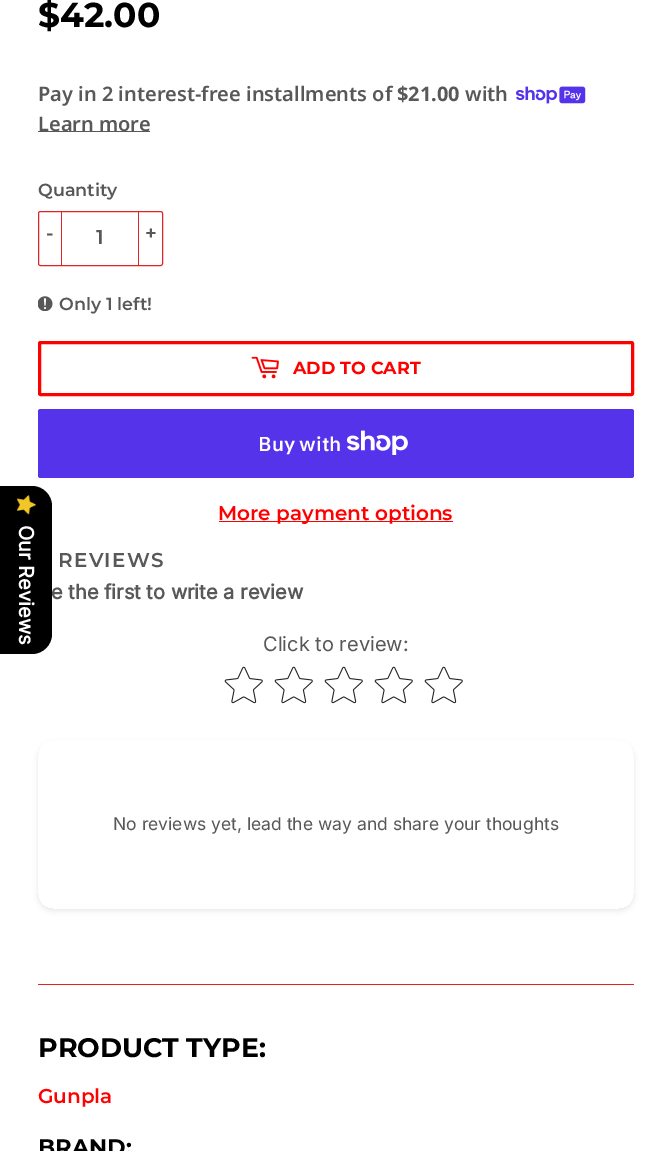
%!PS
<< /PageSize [671 1151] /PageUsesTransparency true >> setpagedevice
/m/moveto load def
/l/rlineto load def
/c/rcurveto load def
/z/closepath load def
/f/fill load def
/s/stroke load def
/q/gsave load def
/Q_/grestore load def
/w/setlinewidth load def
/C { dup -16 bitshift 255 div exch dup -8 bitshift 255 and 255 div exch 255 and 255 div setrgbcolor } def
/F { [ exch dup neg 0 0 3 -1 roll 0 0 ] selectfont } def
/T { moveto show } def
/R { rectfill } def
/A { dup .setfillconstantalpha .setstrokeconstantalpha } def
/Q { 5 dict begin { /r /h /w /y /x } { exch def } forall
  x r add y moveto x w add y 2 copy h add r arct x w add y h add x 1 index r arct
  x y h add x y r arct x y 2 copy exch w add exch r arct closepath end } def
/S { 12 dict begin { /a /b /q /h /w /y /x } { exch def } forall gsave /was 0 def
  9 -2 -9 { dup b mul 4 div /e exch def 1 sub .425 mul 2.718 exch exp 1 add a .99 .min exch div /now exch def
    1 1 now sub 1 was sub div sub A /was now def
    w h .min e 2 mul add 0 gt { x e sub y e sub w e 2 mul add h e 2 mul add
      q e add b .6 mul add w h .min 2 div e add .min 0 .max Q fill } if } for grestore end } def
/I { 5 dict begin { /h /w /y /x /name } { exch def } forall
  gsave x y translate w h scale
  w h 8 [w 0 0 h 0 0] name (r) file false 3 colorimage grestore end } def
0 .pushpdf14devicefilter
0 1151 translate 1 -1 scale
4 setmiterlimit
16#FFFFFF C
0 0 671 1151 R
/Inter-Bold 20 F
16#585858 C
(e the first to write a review) 51 599 T
16#000000 C
52 506 m 0 128 l 0 11 -9 20 -20 20 c -32 0 l 0 -168 l 32 0 l 11 0 20 9 20 20 c z f
(1.rgb) 17 495 19 20 I
16#FFFFFF C
q 19 525 translate 90 rotate 0 0 m (Our Reviews) show Q_
/Montserrat-Bold 34.5 F
16#000000 C
($42.00) 38 27 T
/NotoSans-SemiBold 20 F
16#585858 C
(Pay in 2 interest-free installments of) 38 101 T
/NotoSans-Bold 20 F
($21.00) 397 101 T
/NotoSans-SemiBold 20 F
(with) 465 101 T
(2.rgb) 516 86 70 18 I
38 131 112 1 R
(Learn more) 38 131 T
/Montserrat-SemiBold 17.5 F
(Quantity) 38 196 T
16#DD2525 C
38.5 211.5 124 54 2 Q s
61 211 1 55 R
/Montserrat-SemiBold 20 F
16#585858 C
(-) 46 240 T
(1) 96 244 T
16#DD2525 C
138 211 1 55 R
16#585858 C
(+) 145 240 T
(3.rgb) 38 296 15 15 I
/Montserrat-SemiBold 17.5 F
(Only 1 left!) 59 310 T
16#FF0000 C
3 w
39.5 342.5 593 52 1 Q s
(4.rgb) 251 356 28 23 I
/Montserrat-Bold 17.5 F
(ADD TO CART) 293 374 T
16#5433EB C
38 409 596 69 2.5 Q f
/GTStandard-SemiBold 20 F
16#FFFFFF C
(Buy with) 258 451 T
(5.rgb) 346 430 62 25 I
16#FF0000 C
219 521 234 1 R
/Montserrat-SemiBold 20 F
(More payment options) 218 520 T
16#585858 C
58 567 m 1.25 0 (REVIEWS) ashow
/Inter-Regular 20 F
(Click to review:) 263 651 T
(6.rgb) 224 666 39 38 I
(6.rgb) 274 666 39 38 I
(6.rgb) 324 666 39 38 I
(6.rgb) 374 666 39 38 I
(6.rgb) 424 666 39 38 I
q
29 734 m 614 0 l 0 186 l -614 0 l z 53 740 m 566 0 l 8.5 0 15 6.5 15 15 c 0 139 l 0 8.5 -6.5 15 -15 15 c -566 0 l -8.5 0 -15 -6.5 -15 -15 c 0 -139 l 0 -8.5 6.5 -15 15 -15 c z eoclip newpath
16#1F2124 C
38 743 596 168 15 2.5 .1 S
Q_
/Inter-Regular 17.5 F
(No reviews yet, lead the way and share your thoughts) 113 830 T
16#DD2525 C
38 984 596 1 R
/Montserrat-Bold 26.75 F
16#000000 C
(PRODUCT TYPE:) 38 1057 T
/Montserrat-SemiBold 20 F
16#FF0000 C
(Gunpla) 38 1103 T
/Montserrat-Bold 22.5 F
16#000000 C
(BRAND:) 38 1155 T
.poppdf14devicefilter showpage
